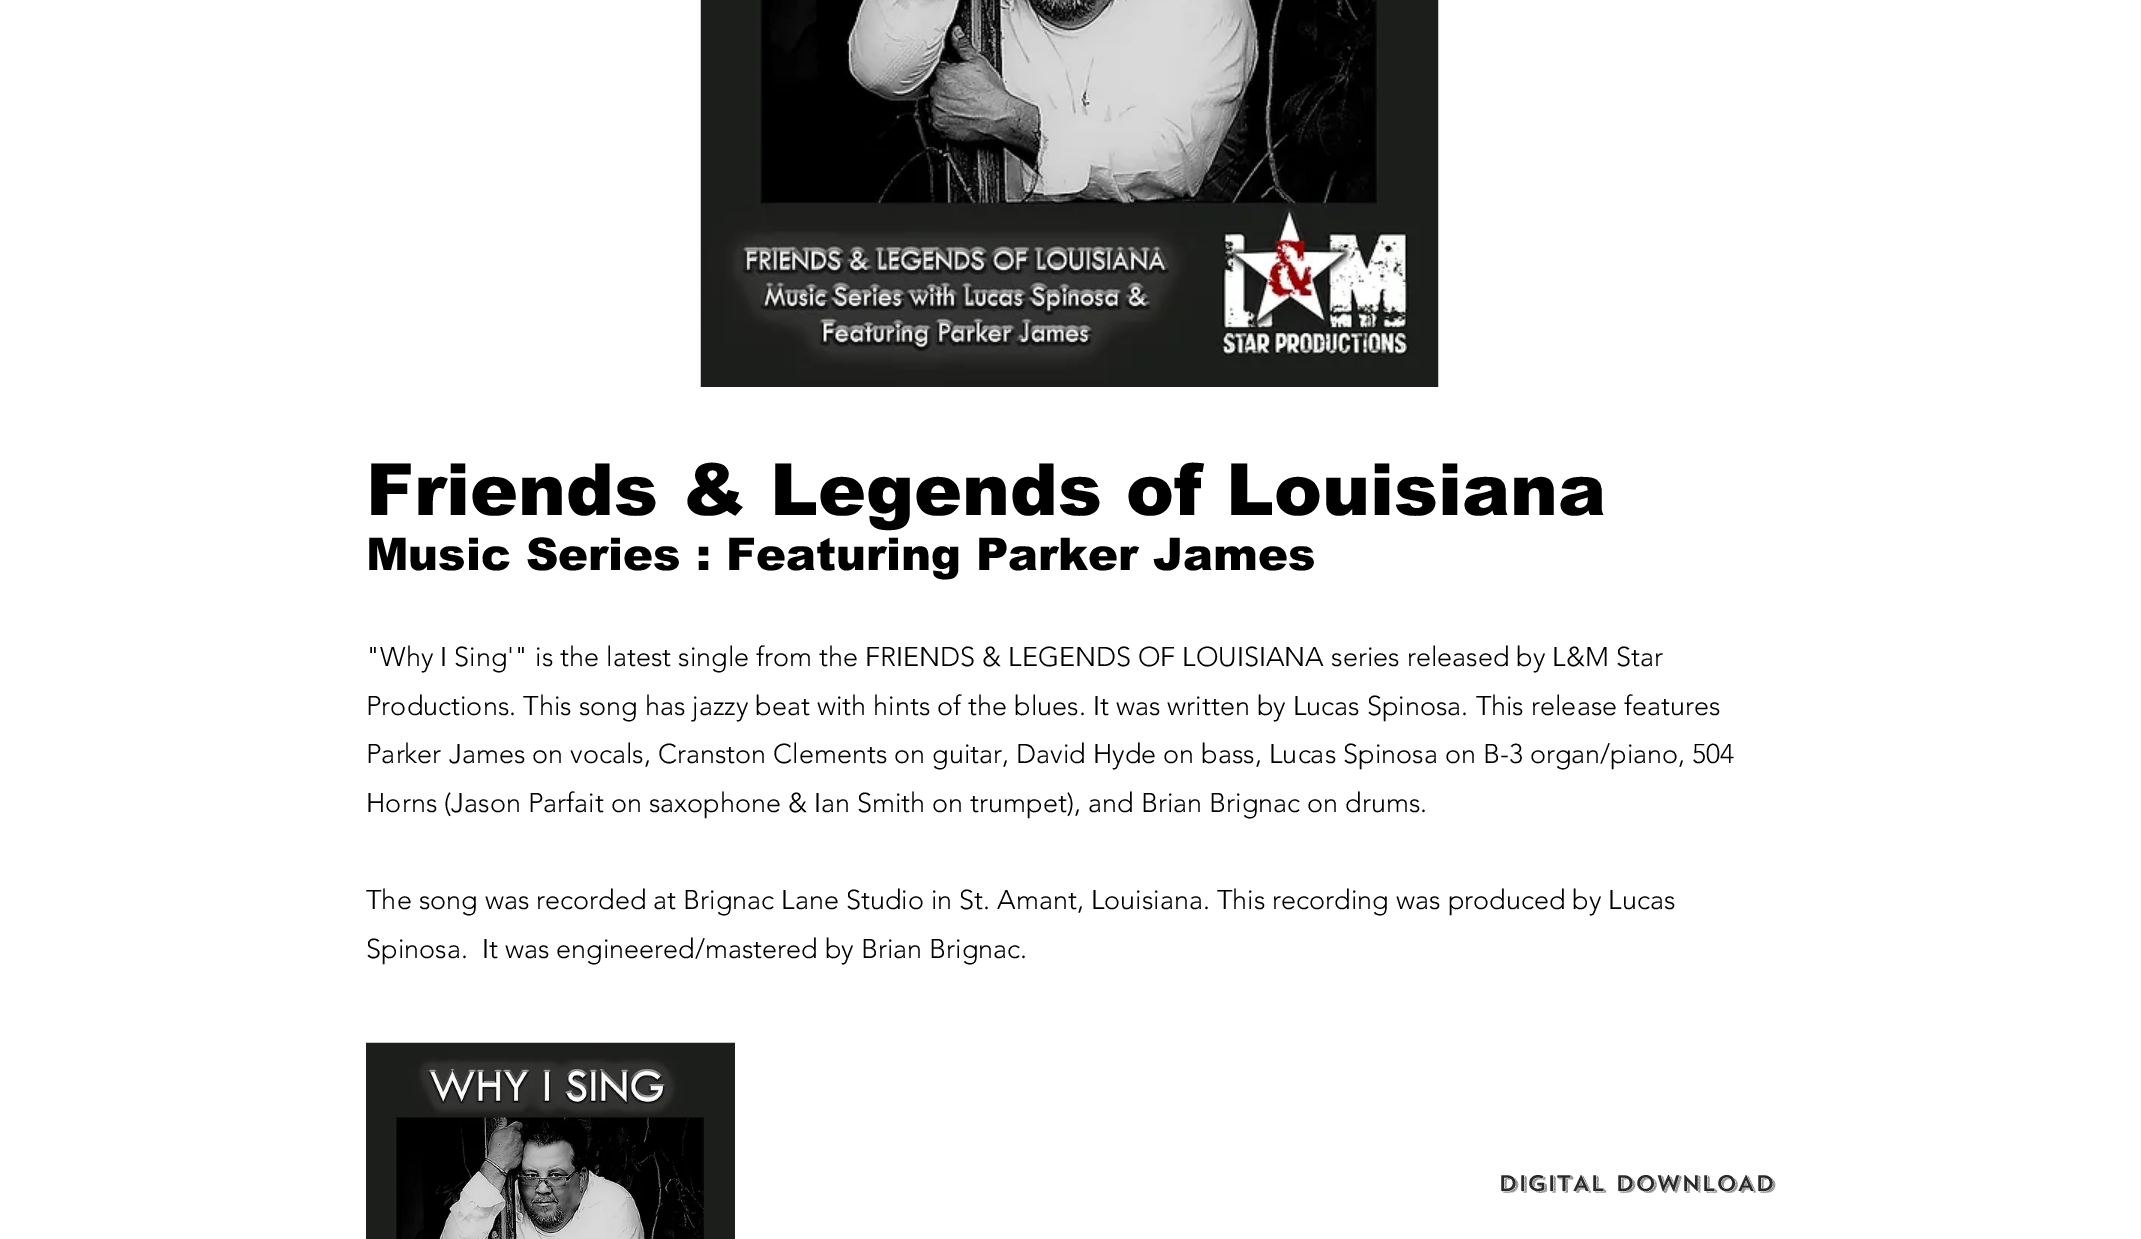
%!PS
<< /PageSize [2141 1239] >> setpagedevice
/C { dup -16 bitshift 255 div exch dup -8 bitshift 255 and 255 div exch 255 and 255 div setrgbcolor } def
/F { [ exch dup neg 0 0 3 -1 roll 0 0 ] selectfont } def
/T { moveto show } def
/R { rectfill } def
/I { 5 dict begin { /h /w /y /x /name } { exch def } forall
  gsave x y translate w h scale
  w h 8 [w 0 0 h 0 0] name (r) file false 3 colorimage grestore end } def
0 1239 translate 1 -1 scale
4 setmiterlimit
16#FFFFFF C
0 0 2141 1239 R
(1.rgb) 700 0 739 387 I
/arial-Black 72 F
16#000000 C
(Friends & Legends of Louisiana) 366 515 T
/arial-Black 45 F
(Music Series : Featuring Parker James) 366 570 T
/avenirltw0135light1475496-Light 27 F
("Why I Sing'" is the latest single from the FRIENDS & LEGENDS OF LOUISIANA series released by L&M Star) 366 666 T
(Productions. This song has jazzy beat with hints of the blues. It was written by Lucas Spinosa. This release features) 366 715 T
(Parker James on vocals, Cranston Clements on guitar, David Hyde on bass, Lucas Spinosa on B-3 organ/piano, 504) 366 763 T
(Horns \(Jason Parfait on saxophone & Ian Smith on trumpet\), and Brian Brignac on drums.) 366 812 T
(The song was recorded at Brignac Lane Studio in St. Amant, Louisiana. This recording was produced by Lucas) 366 909 T
(Spinosa.  It was engineered/mastered by Brian Brignac.) 366 958 T
(2.rgb) 366 1042 369 197 I
/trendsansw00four-Medium 22.5 F
16#292929 C
(DIGITAL DOWNLOAD) 1498 1191 T
showpage
